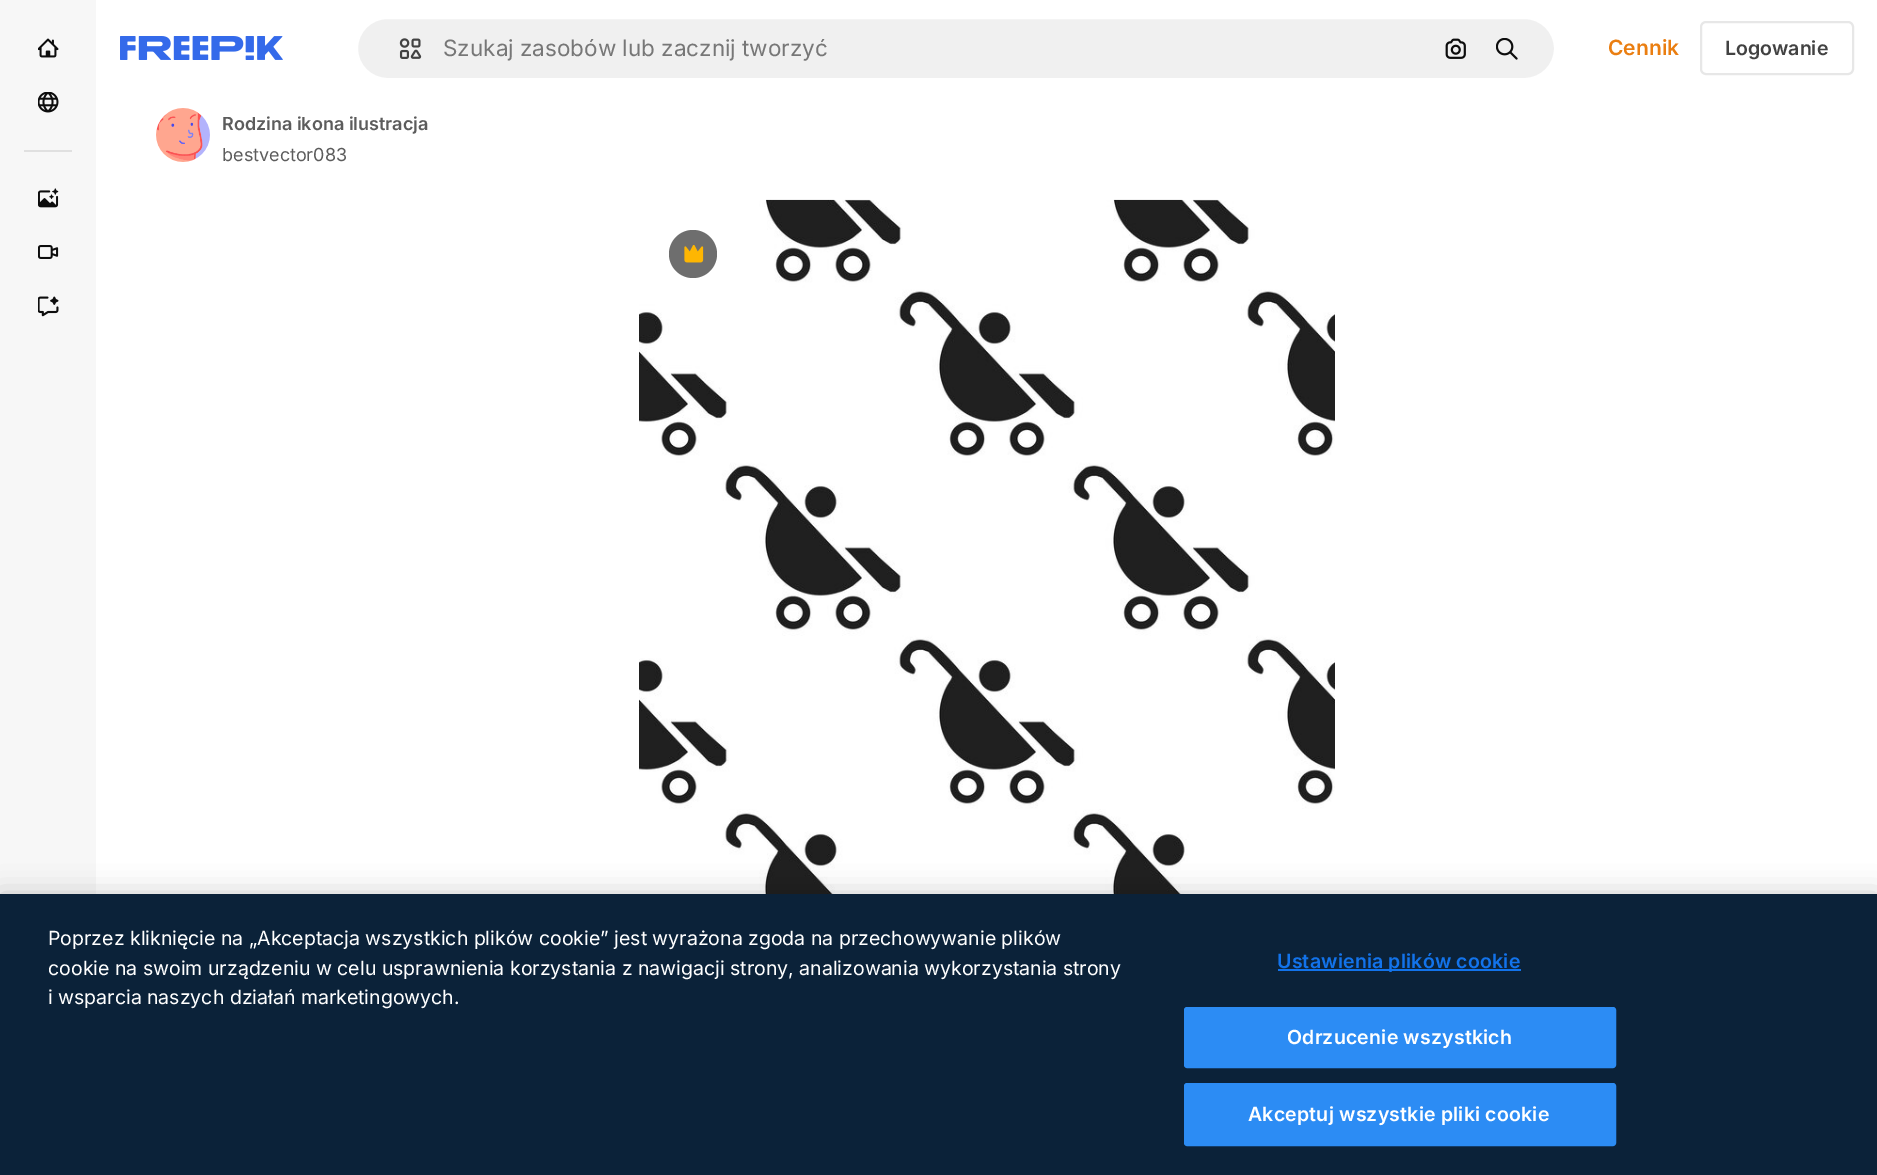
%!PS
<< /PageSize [1877 1175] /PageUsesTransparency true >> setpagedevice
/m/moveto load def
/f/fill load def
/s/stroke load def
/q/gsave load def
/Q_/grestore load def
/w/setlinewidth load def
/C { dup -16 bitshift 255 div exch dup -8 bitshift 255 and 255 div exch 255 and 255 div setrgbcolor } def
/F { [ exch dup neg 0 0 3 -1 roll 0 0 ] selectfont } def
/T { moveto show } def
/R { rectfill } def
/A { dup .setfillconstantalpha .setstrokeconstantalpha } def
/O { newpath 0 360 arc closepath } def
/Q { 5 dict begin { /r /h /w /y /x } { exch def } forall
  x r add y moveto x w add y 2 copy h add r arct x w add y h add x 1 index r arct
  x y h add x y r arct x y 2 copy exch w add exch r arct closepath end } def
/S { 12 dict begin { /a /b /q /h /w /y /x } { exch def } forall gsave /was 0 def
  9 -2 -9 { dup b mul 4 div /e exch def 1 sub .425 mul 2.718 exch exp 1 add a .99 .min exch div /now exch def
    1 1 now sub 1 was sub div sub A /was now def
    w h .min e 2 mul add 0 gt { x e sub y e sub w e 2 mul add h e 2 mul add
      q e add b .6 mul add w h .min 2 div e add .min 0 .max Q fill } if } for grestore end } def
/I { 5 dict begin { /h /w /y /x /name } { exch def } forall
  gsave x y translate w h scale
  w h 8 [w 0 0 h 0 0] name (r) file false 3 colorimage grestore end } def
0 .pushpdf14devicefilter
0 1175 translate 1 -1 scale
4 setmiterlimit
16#FFFFFF C
0 0 1877 1175 R
16#F7F7F7 C
0 0 96 894 R
(1.rgb) 38 38 21 20 I
(2.rgb) 38 92 21 21 I
16#E0E0E0 C
24 150 48 2 R
(3.rgb) 38 188 21 20 I
(4.rgb) 38 245 21 14 I
(5.rgb) 38 296 21 21 I
(6.rgb) 120 36 163 24 I
16#F0F0F0 C
357 18 1198 61 30.5 Q q f Q_
16#FFFFFF C
2 w
s
(7.rgb) 399 38 23 21 I
/Inter-Regular 22.5 F
16#777777 C
(Szukaj zasobów lub zacznij tworzyć) 443 56 T
(8.rgb) 1445 38 21 21 I
(9.rgb) 1496 38 22 22 I
/Inter-SemiBold 21 F
16#EA7E11 C
(Cennik) 1608 55 T
16#E7E7E7 C
1701 22 152 52 5 Q s
/Inter-SemiBold 19.5 F
16#424242 C
(Logowanie) 1725 55 T
(10.rgb) 156 108 54 54 I
/Inter-SemiBold 18 F
16#5C5C5C C
(Rodzina ikona ilustracja) 222 130 T
/Inter-Regular 18 F
(bestvector083) 222 161 T
(11.rgb) 639 199 696 695 I
16#6E6E6E C
693 254 24 O f
(12.rgb) 684 245 20 18 I
16#000000 C
0 894 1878 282 0 13.5 .2 S
16#0B2239 C
0 894 1877 281 R
/Inter-Regular 19.5 F
16#FFFFFF C
(Poprzez kliknięcie na „Akceptacja wszystkich plików cookie” jest wyrażona zgoda na przechowywanie plików) 48 945 T
(cookie na swoim urządzeniu w celu usprawnienia korzystania z nawigacji strony, analizowania wykorzystania strony) 48 975 T
(i wsparcia naszych działań marketingowych.) 48 1004 T
16#1273EB C
1278 969 243 2 R
/Inter-SemiBold 19.5 F
1277 968 m .2 0 (Ustawienia plików cookie) ashow
16#2C8CF4 C
1185 1008 430 59 2 Q q f Q_
s
16#FFFFFF C
1287 1044 m .2 0 (Odrzucenie wszystkich) ashow
16#2C8CF4 C
1185 1084 430 61 2 Q q f Q_
s
16#FFFFFF C
1248 1121 m .2 0 (Akceptuj wszystkie pliki cookie) ashow
.poppdf14devicefilter showpage
